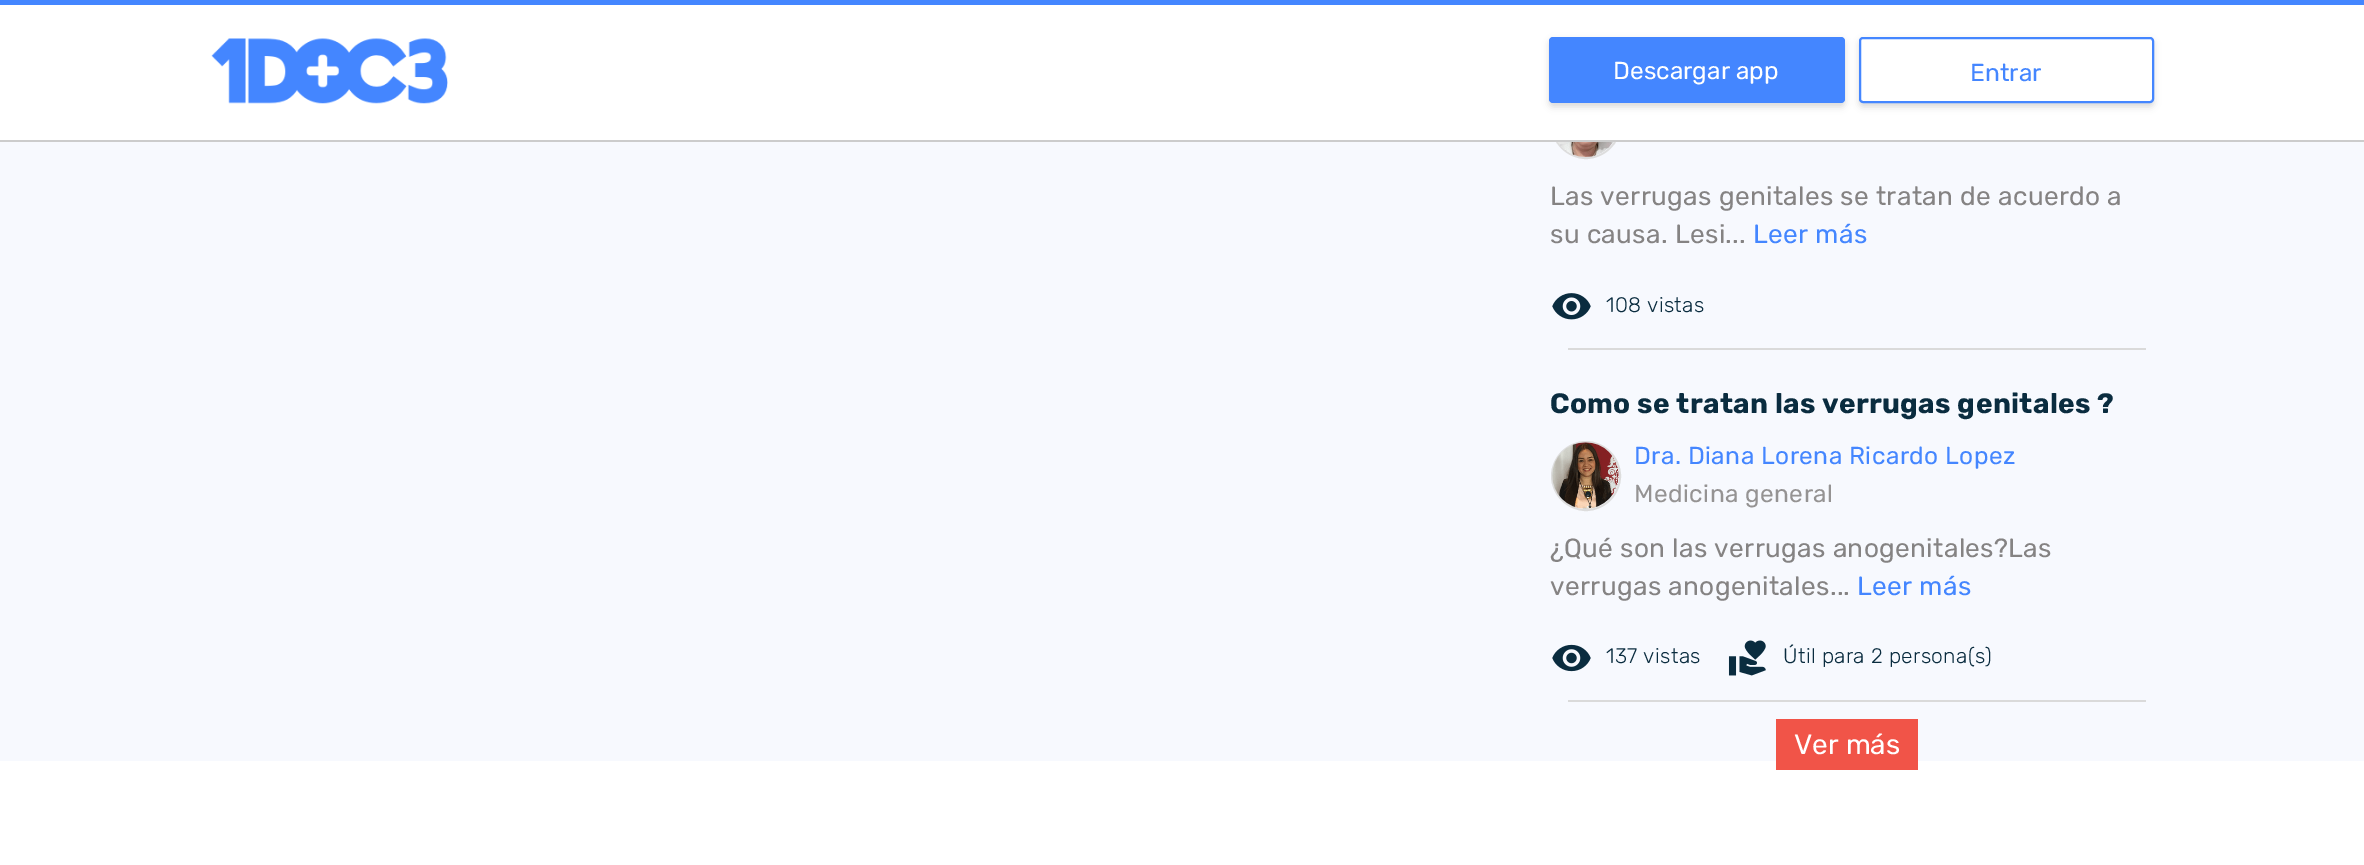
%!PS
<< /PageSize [2364 865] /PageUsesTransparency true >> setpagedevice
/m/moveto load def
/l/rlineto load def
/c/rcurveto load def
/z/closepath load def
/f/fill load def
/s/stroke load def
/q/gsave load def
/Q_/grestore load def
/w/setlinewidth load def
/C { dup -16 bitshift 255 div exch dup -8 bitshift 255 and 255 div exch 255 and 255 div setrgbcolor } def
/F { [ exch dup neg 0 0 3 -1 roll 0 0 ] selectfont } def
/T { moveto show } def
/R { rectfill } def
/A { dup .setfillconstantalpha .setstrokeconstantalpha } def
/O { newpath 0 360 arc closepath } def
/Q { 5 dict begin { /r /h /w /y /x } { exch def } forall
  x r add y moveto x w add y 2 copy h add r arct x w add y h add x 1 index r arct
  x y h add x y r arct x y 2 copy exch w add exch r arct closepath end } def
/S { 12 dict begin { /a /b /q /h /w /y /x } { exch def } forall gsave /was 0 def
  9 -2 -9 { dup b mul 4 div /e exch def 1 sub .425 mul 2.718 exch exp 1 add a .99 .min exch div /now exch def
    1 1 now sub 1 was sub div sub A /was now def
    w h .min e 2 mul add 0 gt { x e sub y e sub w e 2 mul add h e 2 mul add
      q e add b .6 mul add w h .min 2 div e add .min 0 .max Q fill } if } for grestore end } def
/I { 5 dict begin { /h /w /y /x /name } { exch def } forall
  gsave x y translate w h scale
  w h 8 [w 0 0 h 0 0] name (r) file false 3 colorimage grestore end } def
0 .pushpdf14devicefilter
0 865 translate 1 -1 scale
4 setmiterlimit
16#F7F9FE C
0 0 2364 865 R
16#DDDDDD C
2 w
1586 124 34 O s
16#FFFFFF C
0 5 2364 135 R
16#CCCCCC C
0 140 2364 2 R
16#4486FF C
0 0 2364 5 R
(1.rgb) 211 38 237 66 I
16#CACACA C
1549 40 296 67 4 3.5 .7 S
16#4486FF C
1549 37 296 66 4 Q f
/Rubik-Regular 24.5 F
16#FFFFFF C
(Descargar app) 1613 79 T
q
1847 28 m 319 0 l 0 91 l -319 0 l z 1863 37 m 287 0 l 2 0 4 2 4 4 c 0 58 l 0 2 -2 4 -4 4 c -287 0 l -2 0 -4 -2 -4 -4 c 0 -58 l 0 -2 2 -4 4 -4 c z eoclip newpath
16#CACACA C
1859 40 295 67 4 3.5 .7 S
Q_
16#4486FF C
1860 38 293 64 3 Q s
(Entrar) 1970 81 T
(2.rgb) 1557 142 57 15 I
/Rubik-Regular 26.25 F
16#858383 C
1550 205 m .35 0 (Las verrugas genitales se tratan de acuerdo a) ashow
1550 243 m .35 0 (su causa. Lesi...) ashow
16#4486FF C
1753 243 m .35 0 (Leer más) ashow
(3.rgb) 1552 293 39 27 I
/Rubik-Light 21 F
16#0A2C3F C
1606 312 m .35 0 (108 vistas) ashow
16#DADADA C
1568 348 578 2 R
/Rubik-Bold 28 F
16#0A2C3F C
1550 413 m .35 0 (Como se tratan las verrugas genitales ?) ashow
16#DDDDDD C
1586 476 34 O s
(4.rgb) 1552 442 67 67 I
/Rubik-Regular 24.5 F
16#4486FF C
1634 464 m .4 0 (Dra. Diana Lorena Ricardo Lopez) ashow
16#959393 C
1634 502 m .4 0 (Medicina general) ashow
/Rubik-Regular 26.25 F
16#858383 C
1550 557 m .35 0 (¿Qué son las verrugas anogenitales?Las) ashow
1550 595 m .35 0 (verrugas anogenitales...) ashow
16#4486FF C
1857 595 m .35 0 (Leer más) ashow
(5.rgb) 1552 644 39 28 I
/Rubik-Light 21 F
16#0A2C3F C
1606 663 m .35 0 (137 vistas) ashow
(6.rgb) 1728 640 38 36 I
1783 663 m .35 0 (Útil para 2 persona\(s\)) ashow
16#DADADA C
1568 700 578 2 R
16#FFFFFF C
0 761 2364 104 R
16#F15448 C
1776 719 142 51 R
/Rubik-Regular 28 F
16#FFFFFF C
(Ver más) 1794 754 T
.poppdf14devicefilter showpage
